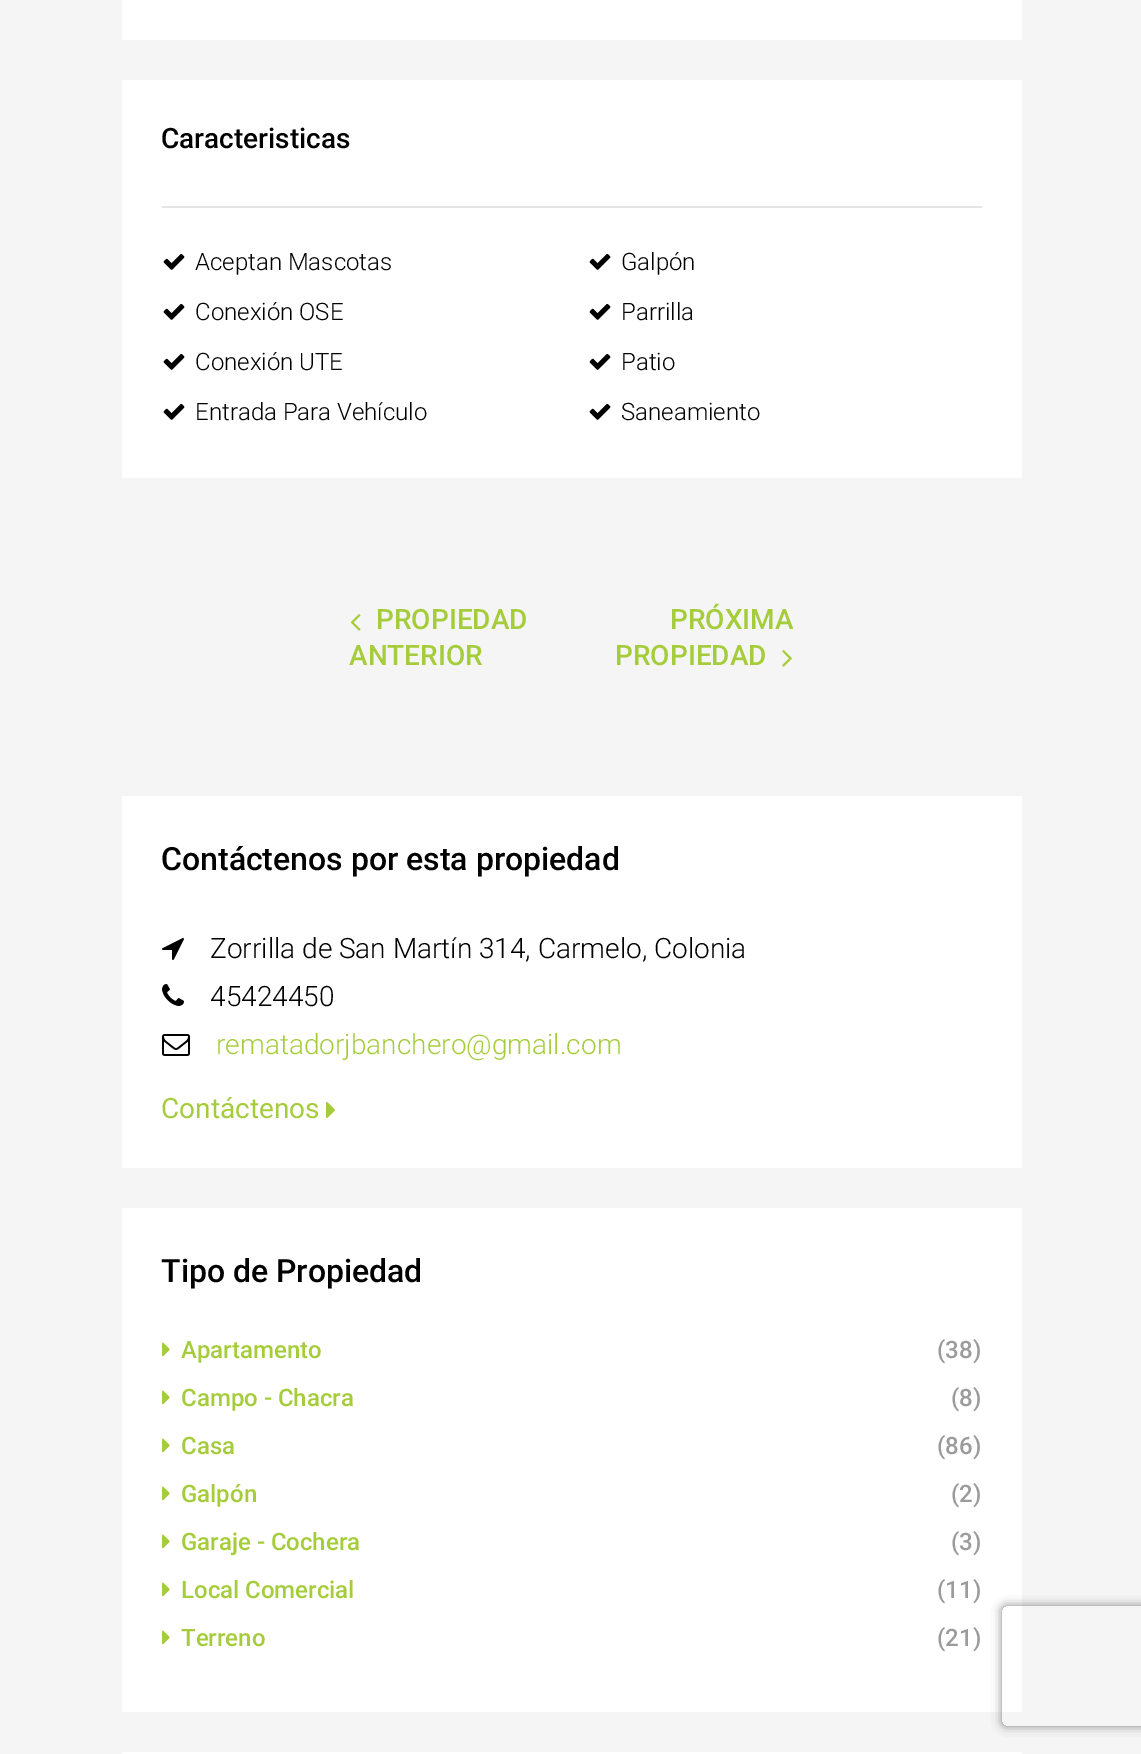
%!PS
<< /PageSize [1141 1754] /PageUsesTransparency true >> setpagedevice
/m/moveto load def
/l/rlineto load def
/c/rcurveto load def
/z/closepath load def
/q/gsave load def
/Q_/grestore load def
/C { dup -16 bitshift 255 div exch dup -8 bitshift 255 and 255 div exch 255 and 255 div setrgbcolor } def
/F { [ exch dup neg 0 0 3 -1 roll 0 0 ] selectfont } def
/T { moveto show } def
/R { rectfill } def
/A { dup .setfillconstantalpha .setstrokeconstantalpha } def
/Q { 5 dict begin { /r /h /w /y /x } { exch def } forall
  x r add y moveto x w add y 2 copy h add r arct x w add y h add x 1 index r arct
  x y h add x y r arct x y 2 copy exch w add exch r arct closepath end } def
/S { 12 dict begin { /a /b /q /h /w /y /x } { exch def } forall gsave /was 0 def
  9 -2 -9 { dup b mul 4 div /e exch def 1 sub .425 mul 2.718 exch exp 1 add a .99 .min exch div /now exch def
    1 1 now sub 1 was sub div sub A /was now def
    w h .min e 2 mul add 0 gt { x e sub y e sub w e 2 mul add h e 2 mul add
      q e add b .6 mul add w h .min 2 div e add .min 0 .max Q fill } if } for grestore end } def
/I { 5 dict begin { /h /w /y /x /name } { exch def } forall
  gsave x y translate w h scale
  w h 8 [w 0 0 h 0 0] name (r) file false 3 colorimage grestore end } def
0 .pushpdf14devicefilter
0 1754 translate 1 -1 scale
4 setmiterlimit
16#F5F5F5 C
0 0 1141 1754 R
16#FFFFFF C
122 0 900 40 R
122 80 900 398 R
16#E5E5E5 C
162 206 820 2 R
/Roboto-Medium 28 F
16#000000 C
(Caracteristicas) 161 148 T
(1.rgb) 163 253 22 17 I
/Roboto-Light 24 F
(Aceptan Mascotas) 195 270 T
(1.rgb) 589 253 22 17 I
(Galpón) 621 270 T
(1.rgb) 163 303 22 17 I
(Conexión OSE) 195 320 T
(1.rgb) 589 303 22 17 I
(Parrilla) 621 320 T
(1.rgb) 163 353 22 17 I
(Conexión UTE) 195 370 T
(1.rgb) 589 353 22 17 I
(Patio) 621 370 T
(1.rgb) 163 403 22 17 I
(Entrada Para Vehículo) 195 420 T
(1.rgb) 589 403 22 17 I
(Saneamiento) 621 420 T
(2.rgb) 350 614 11 17 I
/Roboto-Medium 28 F
16#A5CC3B C
(PROPIEDAD) 376 629 T
(ANTERIOR) 349 665 T
(PRÓXIMA) 670 629 T
(PROPIEDAD) 615 665 T
(3.rgb) 782 650 10 17 I
16#FFFFFF C
122 796 900 372 R
/Roboto-Medium 32 F
16#000000 C
(Contáctenos por esta propiedad) 161 870 T
(4.rgb) 162 938 22 22 I
/Roboto-Light 28 F
(Zorrilla de San Martín 314, Carmelo, Colonia) 210 958 T
(5.rgb) 162 984 22 22 I
(45424450) 210 1006 T
(6.rgb) 162 1034 28 22 I
16#A5CC3B C
(rematadorjbanchero@gmail.com) 216 1054 T
/Roboto-Regular 28 F
(Contáctenos) 161 1118 T
(7.rgb) 326 1102 9 16 I
16#FFFFFF C
122 1208 900 504 R
/Roboto-Medium 32 F
16#000000 C
(Tipo de Propiedad) 161 1282 T
(8.rgb) 162 1342 8 15 I
/Roboto-Medium 24 F
16#A5CC3B C
(Apartamento) 181 1358 T
16#9B9B9B C
(\(38\)) 937 1358 T
(8.rgb) 162 1390 8 15 I
16#A5CC3B C
(Campo - Chacra) 181 1406 T
16#9B9B9B C
(\(8\)) 951 1406 T
(8.rgb) 162 1438 8 15 I
16#A5CC3B C
(Casa) 181 1454 T
16#9B9B9B C
(\(86\)) 937 1454 T
(8.rgb) 162 1486 8 15 I
16#A5CC3B C
(Galpón) 181 1502 T
16#9B9B9B C
(\(2\)) 951 1502 T
(8.rgb) 162 1534 8 15 I
16#A5CC3B C
(Garaje - Cochera) 181 1550 T
16#9B9B9B C
(\(3\)) 951 1550 T
(8.rgb) 162 1582 8 15 I
16#A5CC3B C
(Local Comercial) 181 1598 T
16#9B9B9B C
(\(11\)) 937 1598 T
(8.rgb) 162 1630 8 15 I
16#A5CC3B C
(Terreno) 181 1646 T
16#9B9B9B C
(\(21\)) 937 1646 T
16#FFFFFF C
122 1752 900 2 R
q
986 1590 m 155 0 l 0 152 l -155 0 l z 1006 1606 m 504 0 l 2 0 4 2 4 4 c 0 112 l 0 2 -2 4 -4 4 c -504 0 l -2 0 -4 -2 -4 -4 c 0 -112 l 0 -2 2 -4 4 -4 c z eoclip newpath
16#808080 C
1002 1606 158 120 4 5 1 S
Q_
.poppdf14devicefilter showpage
